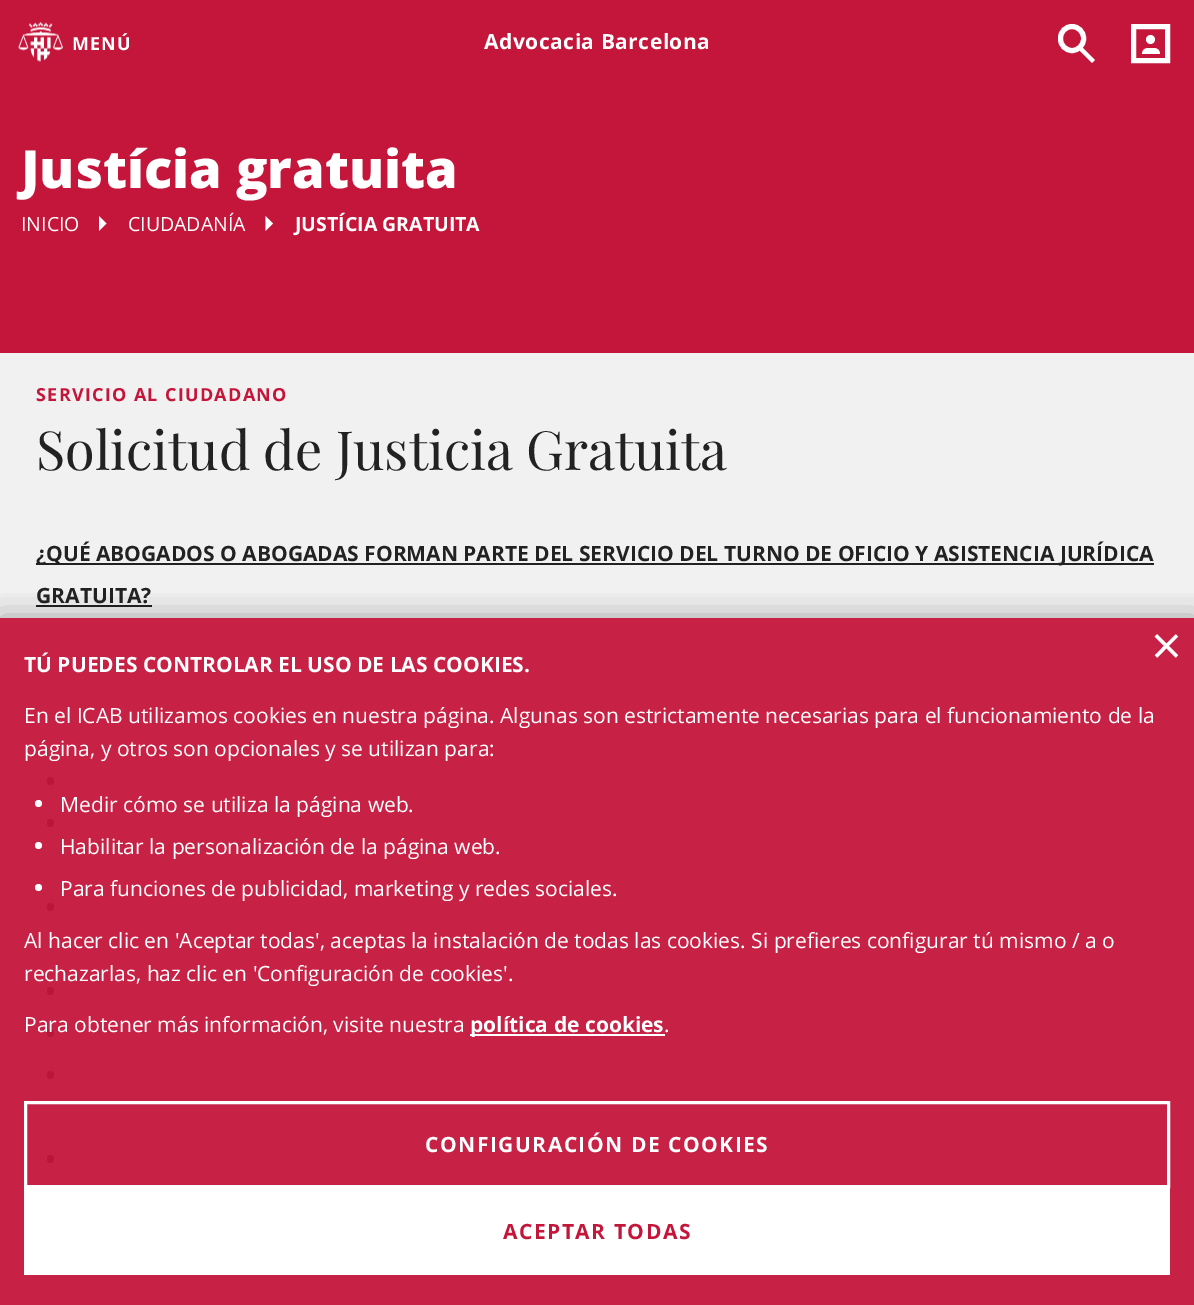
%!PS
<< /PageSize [1194 1305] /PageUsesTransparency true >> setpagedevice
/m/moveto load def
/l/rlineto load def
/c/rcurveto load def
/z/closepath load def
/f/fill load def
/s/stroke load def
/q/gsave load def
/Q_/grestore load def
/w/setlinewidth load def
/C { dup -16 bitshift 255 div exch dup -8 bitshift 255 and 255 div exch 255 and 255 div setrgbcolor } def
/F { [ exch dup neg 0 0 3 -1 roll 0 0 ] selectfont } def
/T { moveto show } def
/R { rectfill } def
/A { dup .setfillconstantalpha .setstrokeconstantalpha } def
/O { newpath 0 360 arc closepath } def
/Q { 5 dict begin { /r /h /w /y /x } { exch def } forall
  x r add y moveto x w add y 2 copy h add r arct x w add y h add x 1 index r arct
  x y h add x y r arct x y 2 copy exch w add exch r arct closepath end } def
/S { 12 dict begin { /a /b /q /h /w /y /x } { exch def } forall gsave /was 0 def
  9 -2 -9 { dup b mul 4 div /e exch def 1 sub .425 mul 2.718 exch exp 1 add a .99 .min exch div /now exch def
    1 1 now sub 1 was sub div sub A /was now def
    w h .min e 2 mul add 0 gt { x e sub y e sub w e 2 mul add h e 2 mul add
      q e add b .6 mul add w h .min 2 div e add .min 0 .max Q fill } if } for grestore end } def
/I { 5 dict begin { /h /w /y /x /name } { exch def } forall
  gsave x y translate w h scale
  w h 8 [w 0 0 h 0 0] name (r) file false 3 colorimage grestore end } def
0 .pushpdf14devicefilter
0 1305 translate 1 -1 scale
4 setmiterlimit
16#C4153A C
0 0 1194 1305 R
(1.rgb) 18 22 45 40 I
/OpenSans-Bold 18 F
16#FFFFFF C
72 50 m 1 0 (MENÚ) ashow
/OpenSans-Bold 21 F
484 49 m .5 0 (Advocacia Barcelona) ashow
5 w
1060.5 26.5 23 24 11.5 Q s
1081.5 46.5 m 13.5 13.5 l -3 3 l -13.5 -13.5 l z f
1133.5 26.5 34 34 rectstroke
1150.5 39.5 4.5 O f
1148 48 m 6 0 l 3.5 0 6 2.5 6 6 c -18 0 l 0 -3.5 2.5 -6 6 -6 c z f
/OpenSans-ExtraBold 52.5 F
(Justícia gratuita) 21 188 T
/OpenSans-Regular 19.5 F
(INICIO) 21 231 T
99 231 m 0 -15 l 7.5 7.5 l z f
(CIUDADANÍA) 128 231 T
265.5 231 m 0 -15 l 7.5 7.5 l z f
/OpenSans-Bold 19.5 F
(JUSTÍCIA GRATUITA) 295 231 T
16#F1F1F1 C
0 353 1194 265 R
16#C72245 C
0 618 1194 687 R
/OpenSans-Bold 18 F
16#C4153A C
36 401 m 1.3 0 (SERVICIO AL CIUDADANO) ashow
/PlayfairDisplay-Regular 54 F
16#222222 C
(Solicitud de Justicia Gratuita) 36 470 T
36 563 1118 2 R
/OpenSans-Bold 21 F
(¿QUÉ ABOGADOS O ABOGADAS FORMAN PARTE DEL SERVICIO DEL TURNO DE OFICIO Y ASISTENCIA JURÍDICA) 36 561 T
(GRATUITA?) 36 603 T
36 605 116 2 R
16#BA1639 C
47 777 7 8 3.5 Q f
47 819 7 8 3.5 Q f
47 903 7 8 3.5 Q f
47 987 7 8 3.5 Q f
47 1029 7 8 3.5 Q f
47 1071 7 8 3.5 Q f
47 1155 7 8 3.5 Q f
q
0 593 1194 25 rectclip
16#000000 C
0 617 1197 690 0 16 .3 S
Q_
/OpenSans-Regular 54 F
16#FFFFFF C
(×) 1151 665 T
/OpenSans-Bold 21 F
(TÚ PUEDES CONTROLAR EL USO DE LAS COOKIES.) 24 672 T
/OpenSans-Regular 21 F
(En el ICAB utilizamos cookies en nuestra página. Algunas son estrictamente necesarias para el funcionamiento de la) 24 723 T
(página, y otros son opcionales y se utilizan para:) 24 756 T
38.5 803.5 3.5 O f
(Medir cómo se utiliza la página web.) 60 812 T
38.5 845.5 3.5 O f
(Habilitar la personalización de la página web.) 60 854 T
38.5 887.5 3.5 O f
(Para funciones de publicidad, marketing y redes sociales.) 60 896 T
(Al hacer clic en 'Aceptar todas', aceptas la instalación de todas las cookies. Si prefieres configurar tú mismo / a o) 24 948 T
(rechazarlas, haz clic en 'Configuración de cookies'.) 24 981 T
(Para obtener más información, visite nuestra) 24 1032 T
470 1034 195 2 R
/OpenSans-Bold 21 F
(política de cookies) 470 1032 T
/OpenSans-Regular 21 F
(.) 664 1032 T
3 w
25.5 1102.5 1143 84 rectstroke
/OpenSans-Bold 21 F
425 1152 m 1.5 0 (CONFIGURACIÓN DE COOKIES) ashow
24 1188 1146 87 R
16#C4153A C
503 1239 m 1.5 0 (ACEPTAR TODAS) ashow
.poppdf14devicefilter showpage
